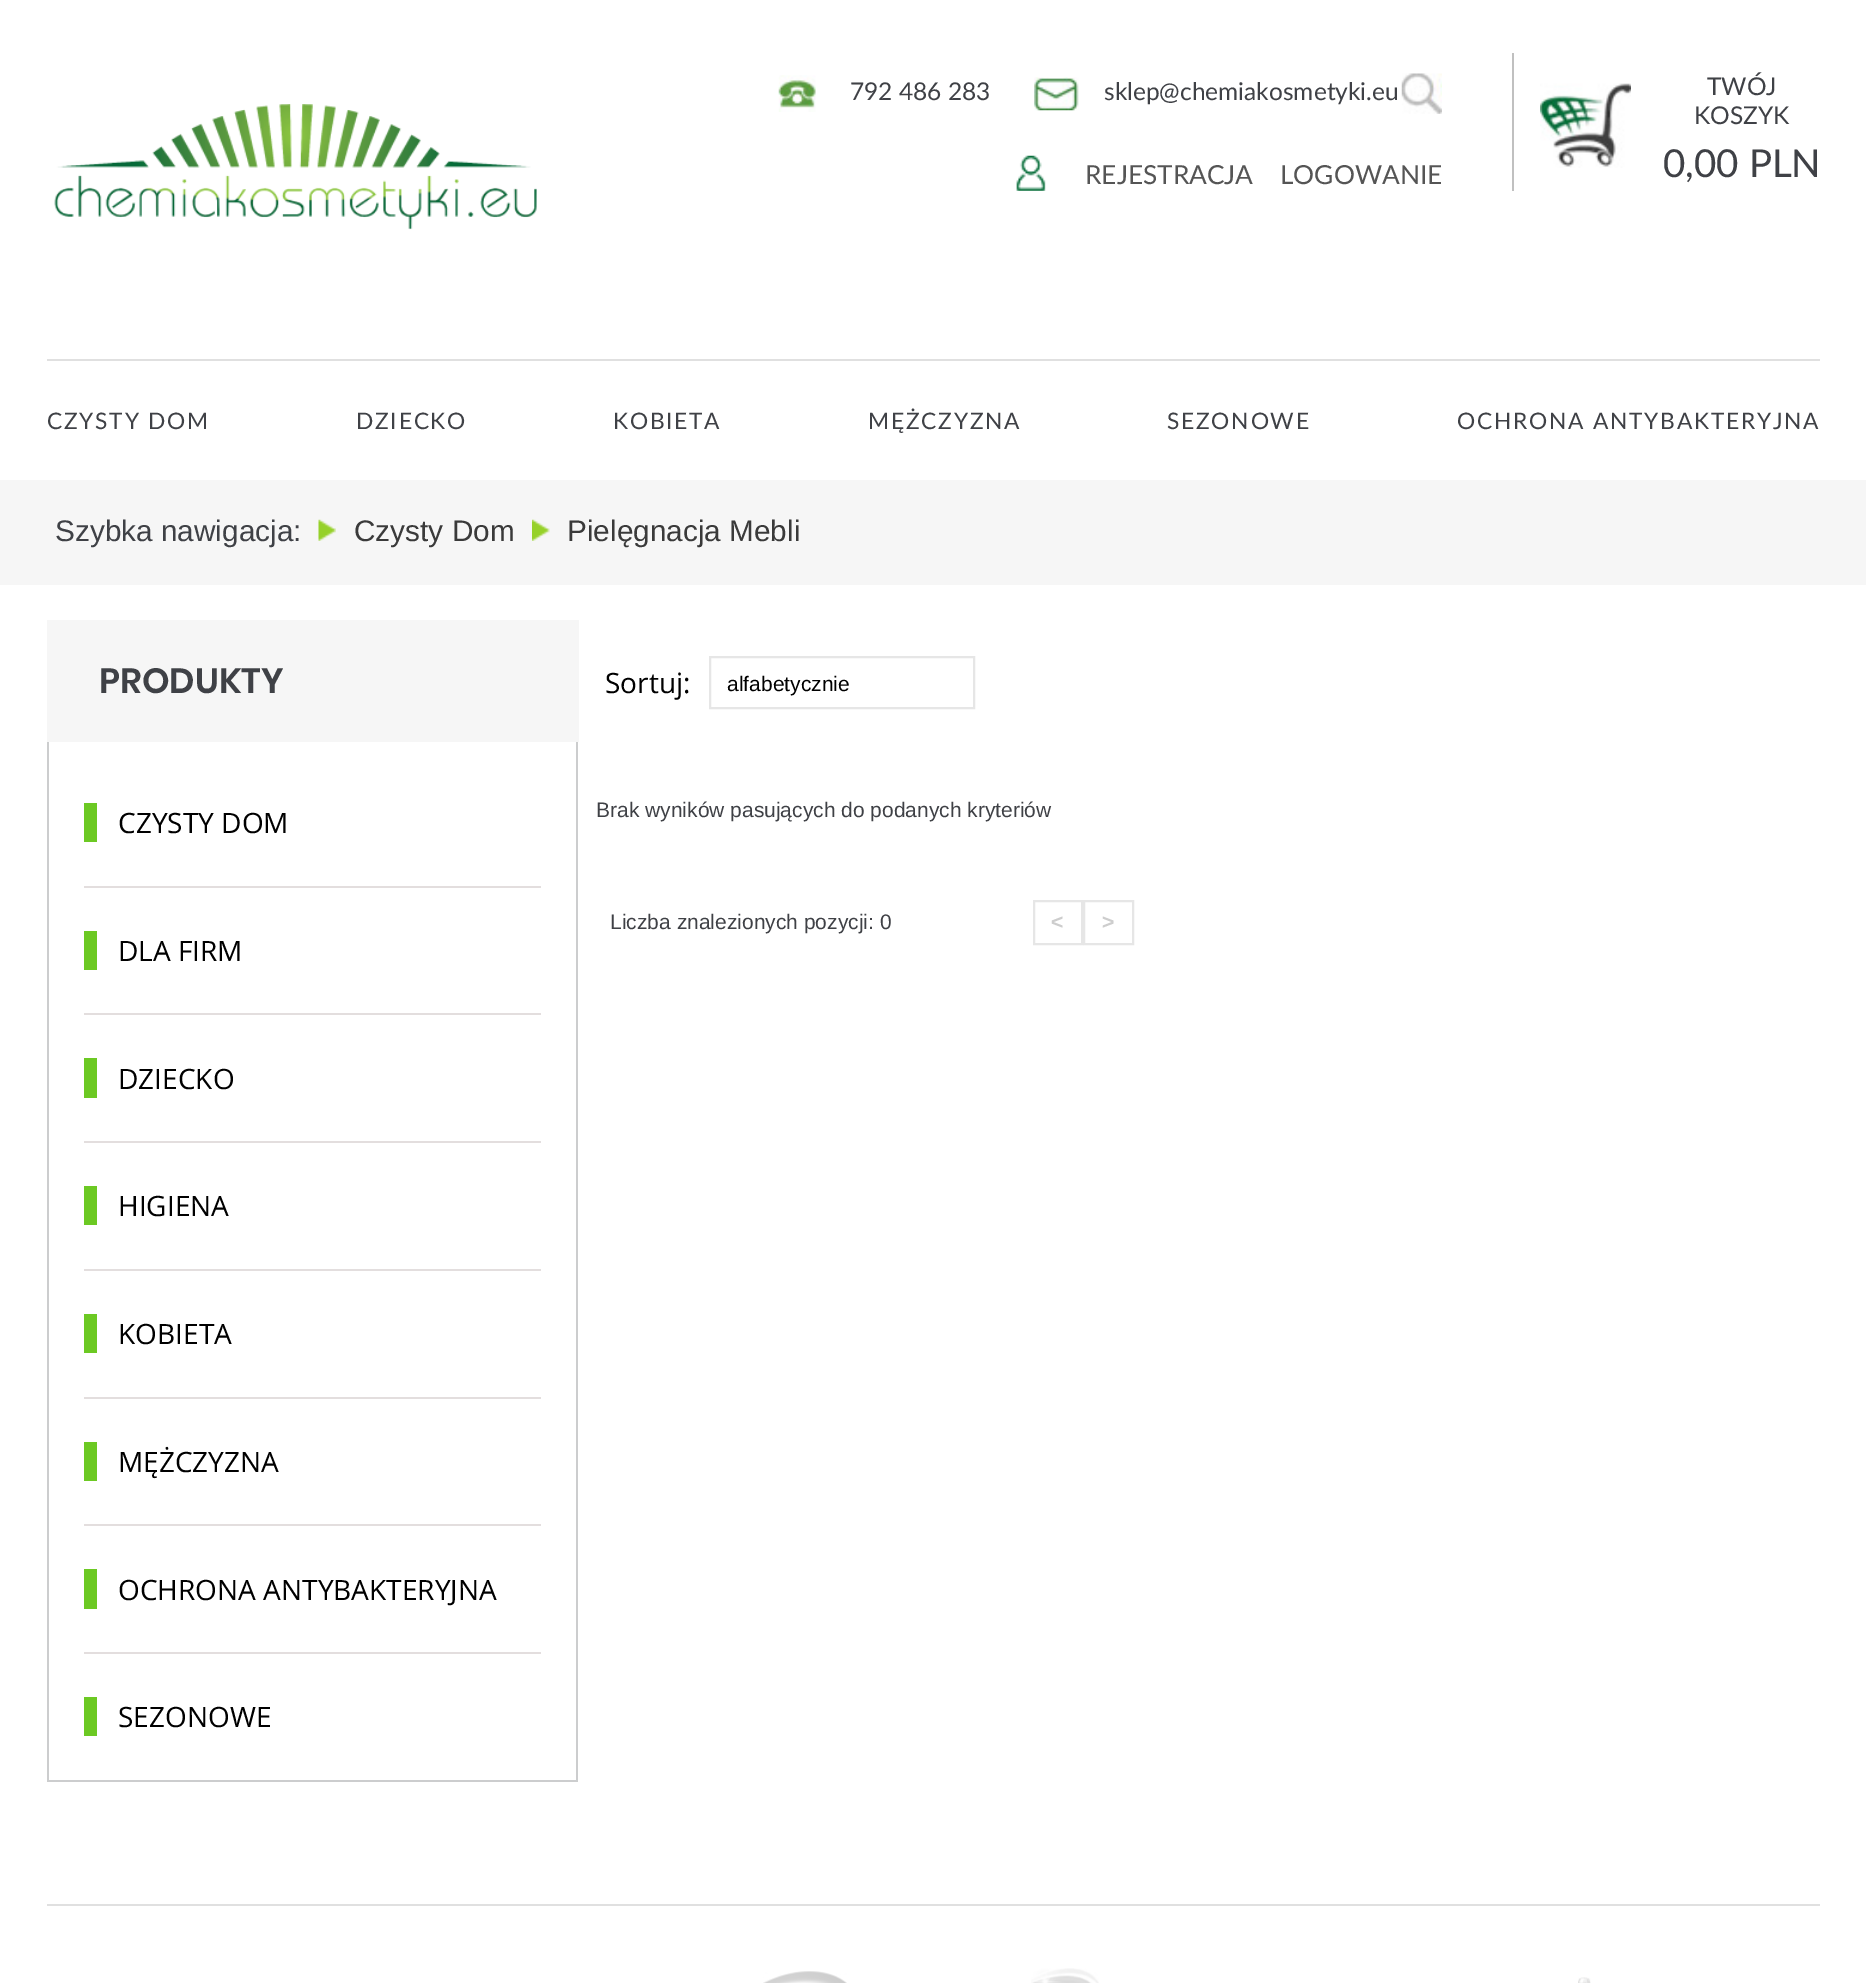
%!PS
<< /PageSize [1866 1983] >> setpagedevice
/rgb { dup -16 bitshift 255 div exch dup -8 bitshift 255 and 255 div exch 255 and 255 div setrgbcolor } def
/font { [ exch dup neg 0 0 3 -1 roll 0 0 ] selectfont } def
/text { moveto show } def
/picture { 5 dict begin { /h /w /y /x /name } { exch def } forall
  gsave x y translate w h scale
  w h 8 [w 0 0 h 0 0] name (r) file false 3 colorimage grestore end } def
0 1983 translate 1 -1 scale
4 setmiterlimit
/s1 { /Lato-Regular 24.5 font 16#3F4146 rgb } def
/s2 { /Lato-Regular 26.25 font 16#555555 rgb } def
/s3 { /Lato-Regular 38.5 font 16#3F4146 rgb } def
/s4 { /LiberationSans-Regular 29.75 font 16#3F4146 rgb } def
/s5 { /LiberationSans-Regular 29.75 font 16#3A3A3A rgb } def
/s6 { /Poppins-SemiBold 35 font 16#3F4146 rgb } def
/s7 { /OpenSans-Regular 28 font 16#000000 rgb } def
/s8 { /LiberationSans-Regular 21 font 16#000000 rgb } def
/s9 { /LiberationSans-Regular 21 font 16#3F4146 rgb } def
/s10 { /LiberationSans-Bold 21 font 16#CDCDCD rgb } def
16#FFFFFF rgb
0 0 1866 1983 rectfill
(pic1.raw) 54 104 483 126 picture
16#C0C0C0 rgb
1512 53 2 138 rectfill
(pic2.raw) 778 75 38 37 picture
s1
(792 486 283) 850 100 text
(pic3.raw) 1034 77 45 34 picture
(sklep@chemiakosmetyki.eu) 1104 100 text
(pic4.raw) 1401 73 41 41 picture
(pic5.raw) 1016 155 30 36 picture
s2
(REJESTRACJA) 1085 184 text
(LOGOWANIE) 1280 184 text
(pic6.raw) 1540 83 91 85 picture
s1
(TWÓJ) 1707 95 text
(KOSZYK) 1694 124 text
s3
(0,00 PLN) 1663 177 text
16#E0E0E0 rgb
47 359 1773 2 rectfill
/Lato-Regular 22.75 font
16#3F4146 rgb
47 429 moveto 1.75 0 (CZYSTY DOM) ashow
356 429 moveto 1.75 0 (DZIECKO) ashow
613 429 moveto 1.75 0 (KOBIETA) ashow
868 429 moveto 1.75 0 (MĘŻCZYZNA) ashow
1167 429 moveto 1.75 0 (SEZONOWE) ashow
1457 429 moveto 1.75 0 (OCHRONA ANTYBAKTERYJNA) ashow
16#F6F6F6 rgb
0 480 1866 105 rectfill
s4
(Szybka nawigacja:) 55 541 text
(pic7.raw) 318 519 18 22 picture
s5
(Czysty Dom) 354 541 text
(pic8.raw) 532 519 18 22 picture
(Pielęgnacja Mebli) 567 541 text
16#F6F6F6 rgb
47 620 532 122 rectfill
s6
(PRODUKTY) 99 693 text
16#CCCDCE rgb
576 742 2 1040 rectfill
47 1780 531 2 rectfill
47 742 2 1040 rectfill
16#6CC923 rgb
84 803 13 39 rectfill
s7
(CZYSTY DOM) 118 833 text
16#6CC923 rgb
84 931 13 39 rectfill
16#E3DEDE rgb
84 886 457 2 rectfill
s7
(DLA FIRM) 118 961 text
16#6CC923 rgb
84 1058 13 40 rectfill
16#E3DEDE rgb
84 1013 457 2 rectfill
s7
(DZIECKO) 118 1089 text
16#6CC923 rgb
84 1186 13 39 rectfill
16#E3DEDE rgb
84 1141 457 2 rectfill
s7
(HIGIENA) 118 1216 text
16#6CC923 rgb
84 1314 13 39 rectfill
16#E3DEDE rgb
84 1269 457 2 rectfill
s7
(KOBIETA) 118 1344 text
16#6CC923 rgb
84 1442 13 39 rectfill
16#E3DEDE rgb
84 1397 457 2 rectfill
s7
(MĘŻCZYZNA) 118 1472 text
16#6CC923 rgb
84 1569 13 40 rectfill
16#E3DEDE rgb
84 1524 457 2 rectfill
s7
(OCHRONA ANTYBAKTERYJNA) 118 1600 text
16#6CC923 rgb
84 1697 13 39 rectfill
16#E3DEDE rgb
84 1652 457 2 rectfill
s7
(SEZONOWE) 118 1727 text
(Sortuj:) 605 693 text
16#E6E6E6 rgb
2 setlinewidth
710 657 264 51 rectstroke
s8
(alfabetycznie) 727 691 text
s9
(Brak wyników pasujących do podanych kryteriów) 596 817 text
(Liczba znalezionych pozycji: 0) 610 929 text
16#E6E6E6 rgb
1034 901 48 43 rectstroke
s10
(<) 1051 929 text
16#E6E6E6 rgb
1084 901 49 43 rectstroke
s10
(>) 1102 929 text
16#E0E0E0 rgb
47 1904 1773 2 rectfill
(pic9.raw) 763 1971 84 12 picture
(pic10.raw) 1031 1968 68 15 picture
(pic11.raw) 1578 1977 13 6 picture
showpage
